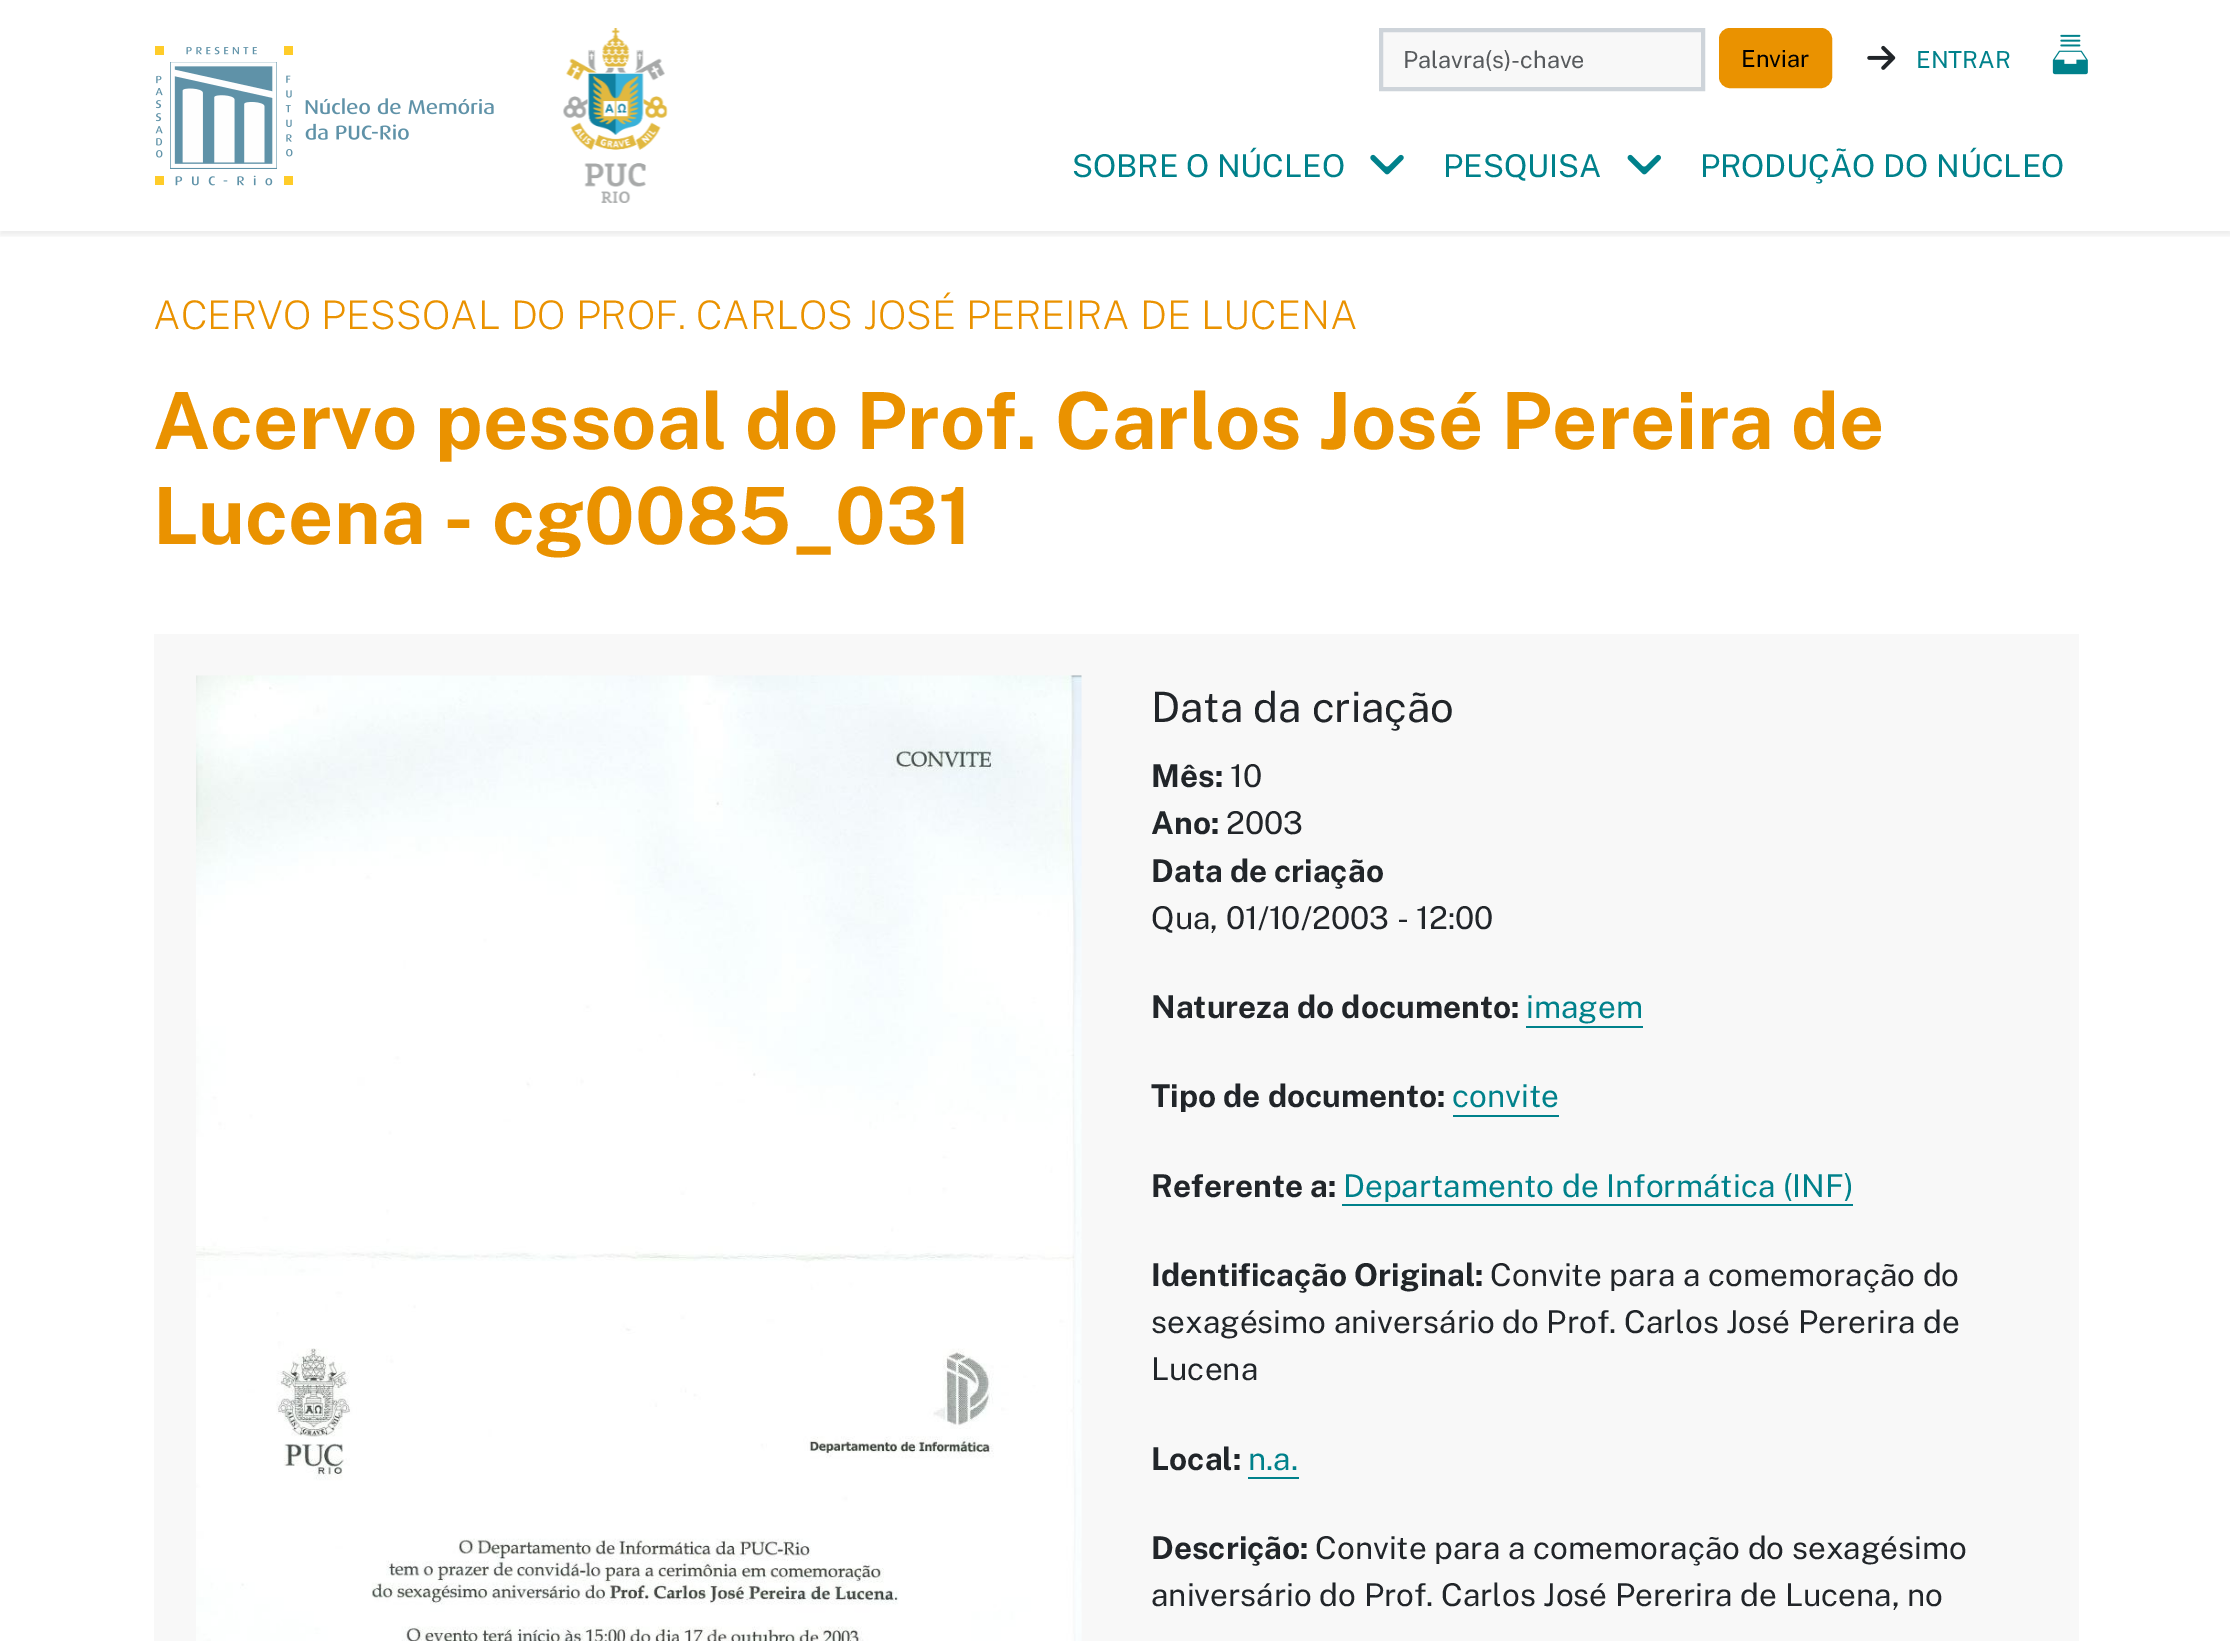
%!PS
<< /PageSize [2230 1641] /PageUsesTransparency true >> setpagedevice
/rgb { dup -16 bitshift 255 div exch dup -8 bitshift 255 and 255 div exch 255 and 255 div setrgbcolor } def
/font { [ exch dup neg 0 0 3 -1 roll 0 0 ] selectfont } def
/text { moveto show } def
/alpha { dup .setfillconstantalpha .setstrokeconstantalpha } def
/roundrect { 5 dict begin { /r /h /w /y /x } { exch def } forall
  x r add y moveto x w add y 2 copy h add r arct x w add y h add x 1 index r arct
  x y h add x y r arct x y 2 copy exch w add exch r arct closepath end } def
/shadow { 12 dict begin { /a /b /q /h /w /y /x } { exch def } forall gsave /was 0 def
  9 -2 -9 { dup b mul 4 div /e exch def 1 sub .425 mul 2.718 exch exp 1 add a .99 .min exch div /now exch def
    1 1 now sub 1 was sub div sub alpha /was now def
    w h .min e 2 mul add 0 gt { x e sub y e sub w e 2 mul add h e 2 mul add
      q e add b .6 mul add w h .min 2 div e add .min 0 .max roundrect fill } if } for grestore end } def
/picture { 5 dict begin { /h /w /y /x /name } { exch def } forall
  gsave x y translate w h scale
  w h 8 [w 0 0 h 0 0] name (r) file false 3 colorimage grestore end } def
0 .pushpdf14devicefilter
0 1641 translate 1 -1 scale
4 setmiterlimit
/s1 { /PublicSans-Regular 23.5 font 16#575A5D rgb } def
/s2 { /PublicSans-Regular 23.5 font 16#000000 rgb } def
/s3 { /PublicSans-Regular 23.5 font 16#00818B rgb } def
/s4 { /PublicSans-Regular 31.5 font 16#00818B rgb } def
/s5 { /PublicSans-ExtraLight 39.4 font 16#EA9200 rgb } def
/s6 { /PublicSans-Bold 78.75 font 16#EA9200 rgb } def
/s7 { /PublicSans-Regular 42 font 16#212529 rgb } def
/s8 { /PublicSans-Bold 31.5 font 16#212529 rgb } def
/s9 { /PublicSans-Regular 31.5 font 16#212529 rgb } def
16#FFFFFF rgb
0 0 2230 1641 rectfill
gsave
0 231 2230 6 rectclip
16#000000 rgb
0 4 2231 231 0 3.5 0.07 shadow
grestore
(pic1.raw) 155 46 339 140 picture
(pic2.raw) 563 28 105 175 picture
16#F8F8F8 rgb
1381 30 moveto 1703 30 lineto 1703 89 lineto 1381 89 lineto closepath gsave fill grestore
16#CED4DA rgb
4 setlinewidth
stroke
s1
(Palavra\(s\)-chave) 1403 68 text
16#EA9200 rgb
1720 29 111 58 10 roundrect gsave fill grestore
2 setlinewidth
stroke
s2
(Enviar) 1741 67 text
(pic3.raw) 1867 45 29 25 picture
s3
(ENTRAR) 1916 68 text
(pic4.raw) 2052 34 36 41 picture
s4
(SOBRE O NÚCLEO) 1072 177 text
(pic5.raw) 1370 154 34 21 picture
(PESQUISA) 1443 177 text
(pic6.raw) 1627 154 34 21 picture
(PRODUÇÃO DO NÚCLEO) 1700 177 text
s5
(ACERVO PESSOAL DO PROF. CARLOS JOSÉ PEREIRA DE LUCENA) 153 329 text
s6
(Acervo pessoal do Prof. Carlos José Pereira de) 153 449 text
(Lucena - cg0085_031) 153 544 text
16#F8F8F8 rgb
154 634 1925 1007 rectfill
(pic7.raw) 196 675 886 966 picture
s7
(Data da criação) 1151 722 text
s8
(Mês:) 1151 787 text
s9
(10) 1230 787 text
s8
(Ano:) 1151 834 text
s9
(2003) 1226 834 text
s8
(Data de criação) 1151 882 text
s9
(Qua, 01/10/2003 - 12:00) 1151 929 text
s8
(Natureza do documento:) 1151 1018 text
s4
(imagem) 1526 1018 text
1526 1026 117 2 rectfill
s8
(Tipo de documento:) 1151 1107 text
s4
(convite) 1452 1107 text
1453 1115 106 2 rectfill
s8
(Referente a:) 1151 1197 text
s4
(Departamento de Informática \(INF\)) 1343 1197 text
1342 1204 511 2 rectfill
s9
(Convite para a comemoração do) 1490 1286 text
(sexagésimo aniversário do Prof. Carlos José Pererira de) 1151 1333 text
(Lucena) 1151 1380 text
s8
(Identificação Original:) 1151 1286 text
(Local:) 1151 1470 text
s4
(n.a.) 1248 1470 text
1248 1477 51 2 rectfill
s9
(Convite para a comemoração do sexagésimo) 1315 1559 text
(aniversário do Prof. Carlos José Pererira de Lucena, no) 1151 1606 text
s8
(Descrição:) 1151 1559 text
.poppdf14devicefilter showpage
